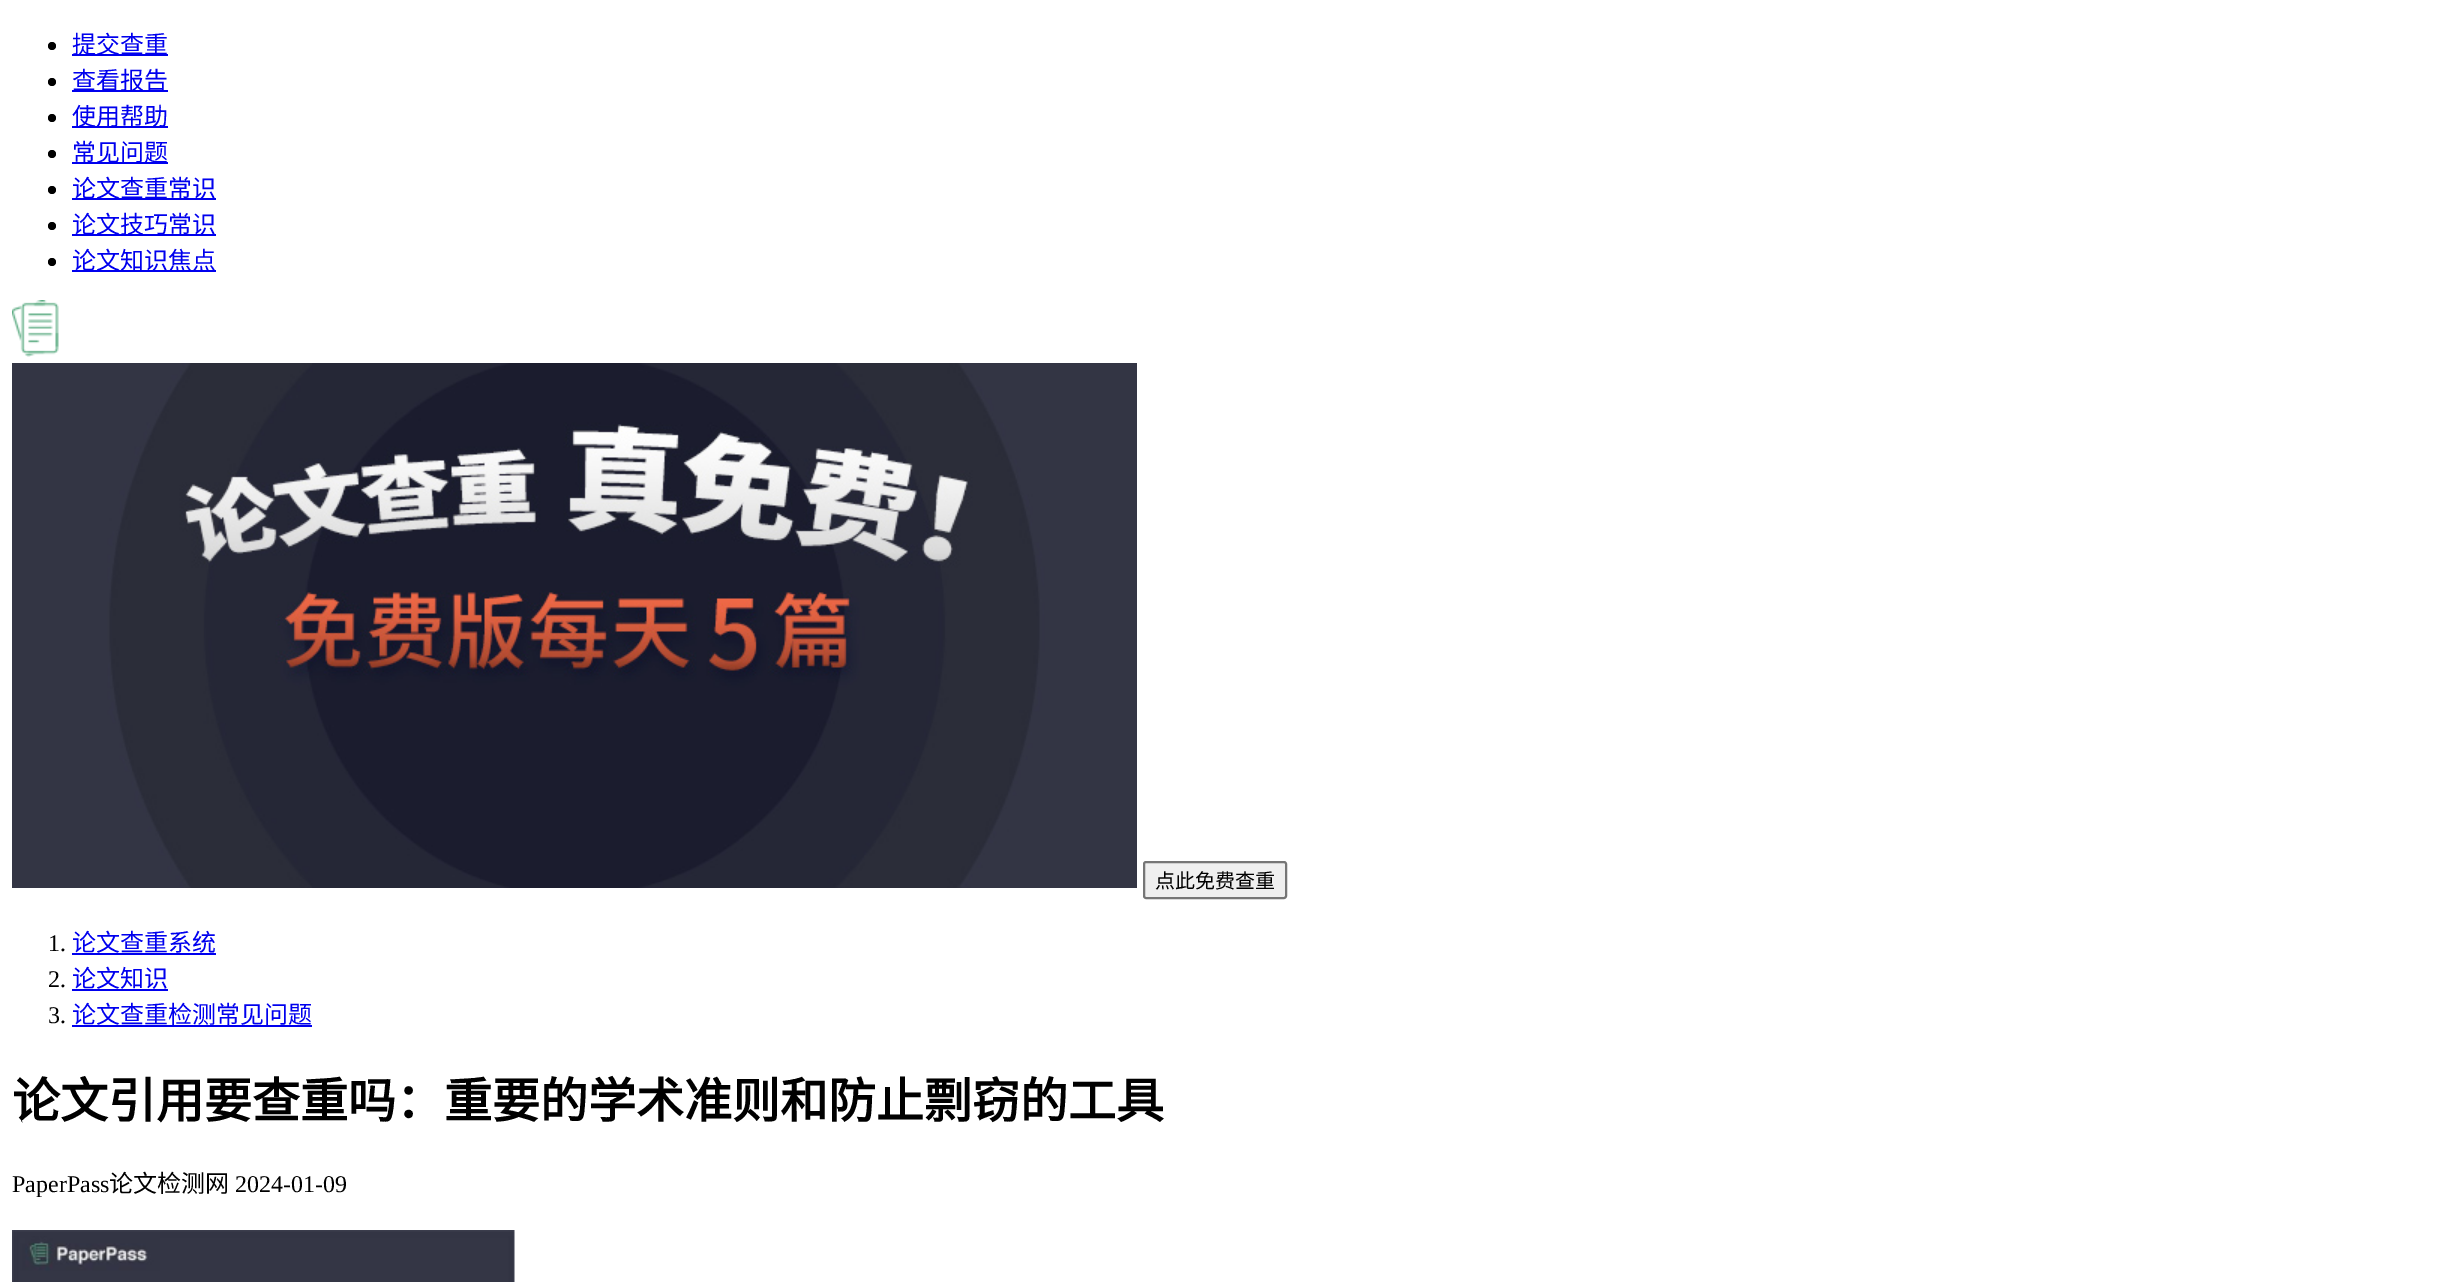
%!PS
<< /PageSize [2453 1282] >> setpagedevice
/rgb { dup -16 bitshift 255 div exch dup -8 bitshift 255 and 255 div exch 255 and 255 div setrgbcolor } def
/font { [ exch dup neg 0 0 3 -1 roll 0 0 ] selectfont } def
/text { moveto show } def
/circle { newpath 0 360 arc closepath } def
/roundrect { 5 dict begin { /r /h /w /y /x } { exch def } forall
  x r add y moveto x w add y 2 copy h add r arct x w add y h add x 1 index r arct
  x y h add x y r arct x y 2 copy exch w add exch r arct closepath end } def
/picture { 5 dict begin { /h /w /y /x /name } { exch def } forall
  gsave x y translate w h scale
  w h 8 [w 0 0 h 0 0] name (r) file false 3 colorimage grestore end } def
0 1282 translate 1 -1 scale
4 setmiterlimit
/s1 { /NotoSansCJKSC-Regular 24 font 16#0000EE rgb } def
/s2 { /NotoSansCJKSC-Regular 20 font 16#000000 rgb } def
/s3 { /LiberationSerif-Regular 24 font 16#000000 rgb } def
/s4 { /NotoSansCJKSC-Bold 48 font 16#000000 rgb } def
/s5 { /NotoSansCJKSC-Regular 24 font 16#000000 rgb } def
16#FFFFFF rgb
0 0 2453 1282 rectfill
16#000000 rgb
52 46 4 circle fill
16#0000EE rgb
72 54 96 2 rectfill
s1
(提交查重) 72 53 text
16#000000 rgb
52 82 4 circle fill
16#0000EE rgb
72 90 96 2 rectfill
(查看报告) 72 89 text
16#000000 rgb
52 118 4 circle fill
16#0000EE rgb
72 126 96 2 rectfill
(使用帮助) 72 125 text
16#000000 rgb
52 154 4 circle fill
16#0000EE rgb
72 162 96 2 rectfill
(常见问题) 72 161 text
16#000000 rgb
52 190 4 circle fill
16#0000EE rgb
72 198 144 2 rectfill
(论文查重常识) 72 197 text
16#000000 rgb
52 226 4 circle fill
16#0000EE rgb
72 234 144 2 rectfill
(论文技巧常识) 72 233 text
16#000000 rgb
52 262 4 circle fill
16#0000EE rgb
72 270 144 2 rectfill
(论文知识焦点) 72 269 text
(pic1.raw) 12 300 47 57 picture
(pic2.raw) 12 363 1125 525 picture
16#EFEFEF rgb
1144 862 142 36 2 roundrect gsave fill grestore
16#767676 rgb
2 setlinewidth
stroke
s2
(点此免费查重) 1155 888 text
s3
(1.) 48 951 text
s1
(论文查重系统) 72 951 text
72 953 144 2 rectfill
s3
(2.) 48 987 text
s1
(论文知识) 72 987 text
72 989 96 2 rectfill
s3
(3.) 48 1023 text
s1
(论文查重检测常见问题) 72 1023 text
72 1025 240 2 rectfill
s4
(论文引用要查重吗：重要的学术准则和防止剽窃的工具) 12 1118 text
s3
(PaperPass) 12 1192 text
s5
(论文检测网) 109 1192 text
s3
(2024-01-09) 235 1192 text
(pic3.raw) 12 1230 503 52 picture
showpage
